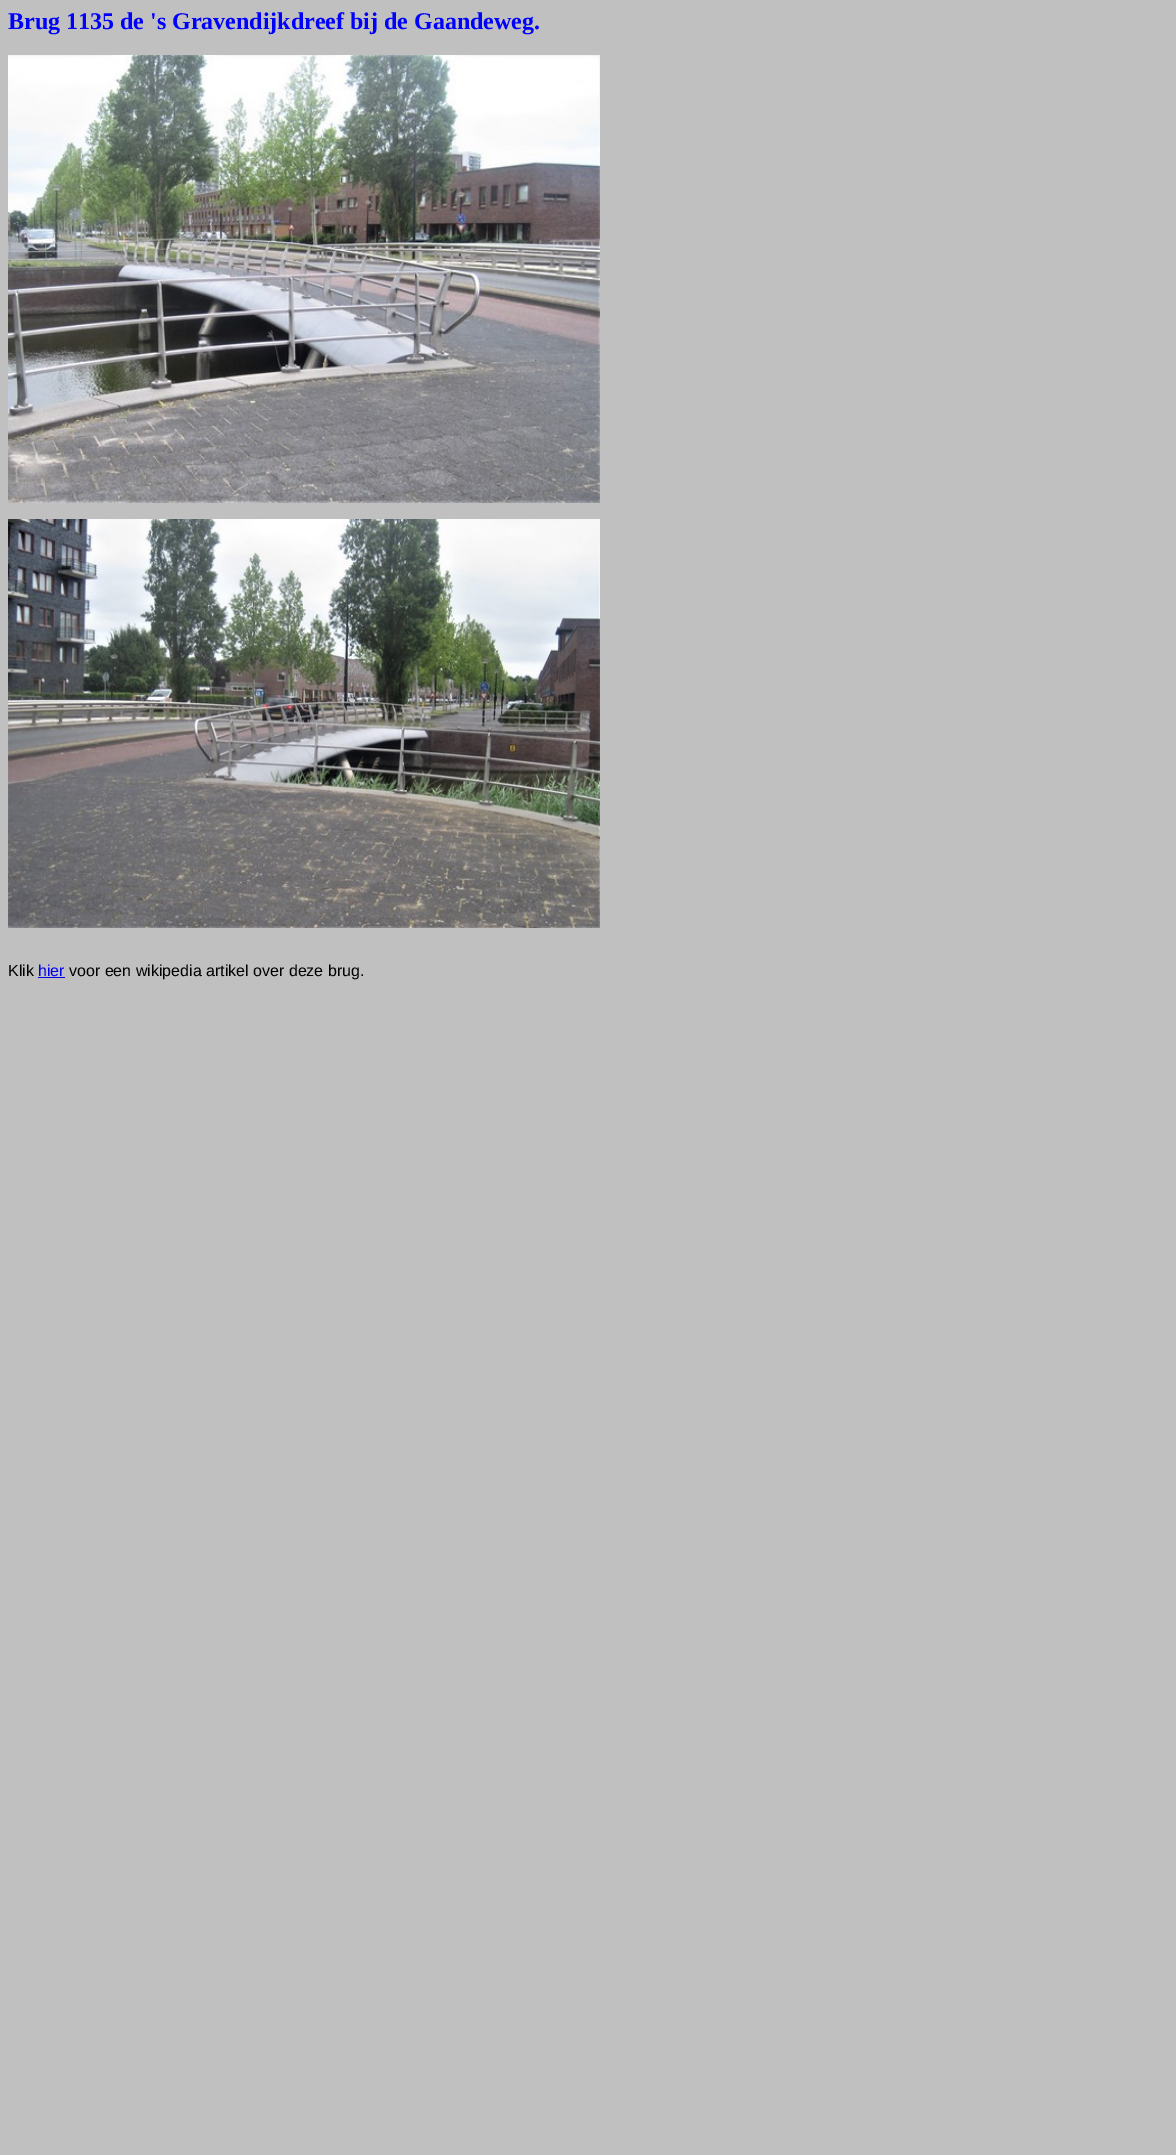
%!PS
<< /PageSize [1176 2155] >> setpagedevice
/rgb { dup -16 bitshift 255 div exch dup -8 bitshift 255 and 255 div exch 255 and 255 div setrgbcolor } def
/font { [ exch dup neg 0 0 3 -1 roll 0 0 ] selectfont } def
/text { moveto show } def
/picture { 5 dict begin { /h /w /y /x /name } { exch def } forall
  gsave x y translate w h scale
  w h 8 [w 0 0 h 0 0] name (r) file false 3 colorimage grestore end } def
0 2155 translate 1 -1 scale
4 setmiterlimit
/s1 { /LiberationSerif-Bold 24 font 16#0000FF rgb } def
/s2 { /LiberationSans-Regular 16 font 16#000000 rgb } def
/s3 { /LiberationSans-Regular 16 font 16#0000EE rgb } def
16#C0C0C0 rgb
0 0 1176 2155 rectfill
s1
(Brug 1135 de 's Gravendijkdreef bij de Gaandeweg.) 8 29 text
(pic1.raw) 8 55 592 448 picture
(pic2.raw) 8 519 592 409 picture
s2
(Klik) 8 976 text
s3
(hier) 38 976 text
38 977 27 1 rectfill
s2
(voor een wikipedia artikel over deze brug.) 69 976 text
showpage
